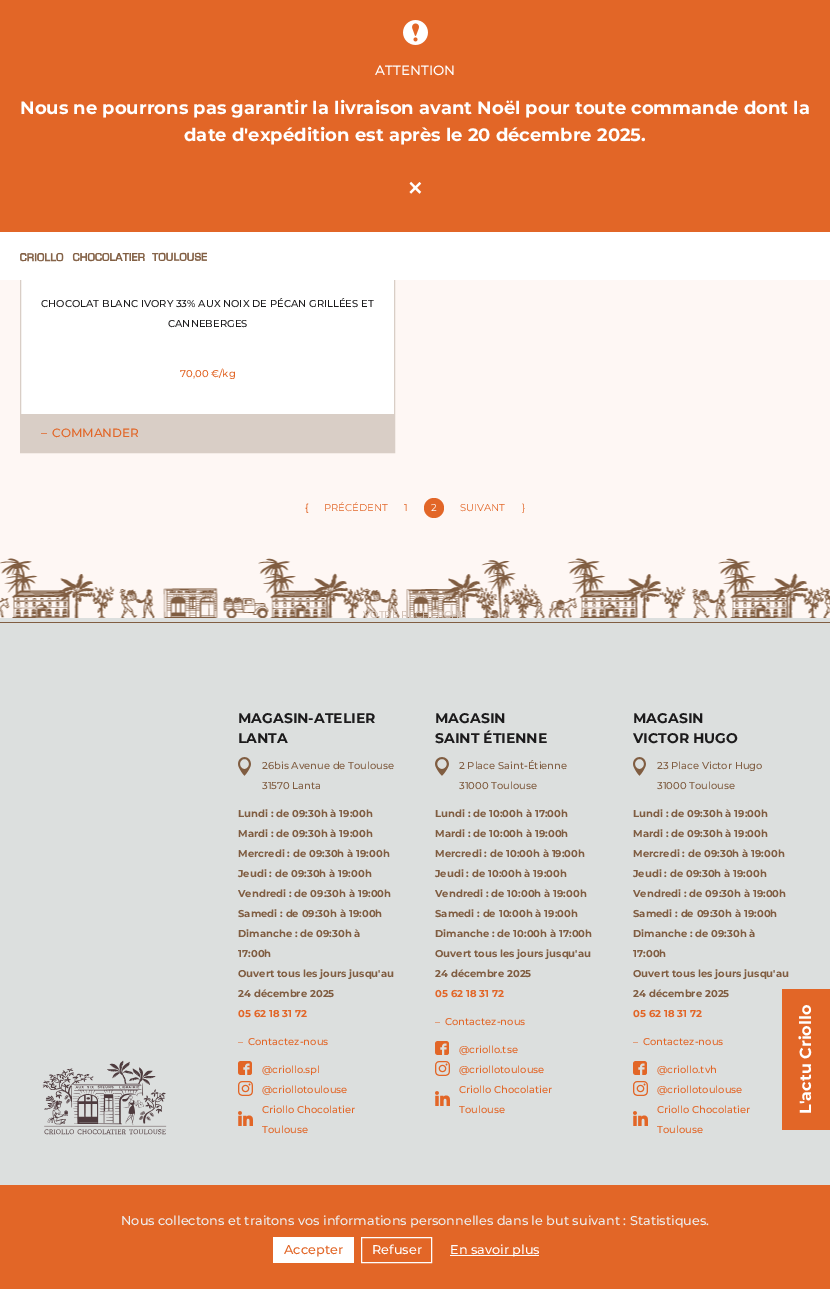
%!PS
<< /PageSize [830 1289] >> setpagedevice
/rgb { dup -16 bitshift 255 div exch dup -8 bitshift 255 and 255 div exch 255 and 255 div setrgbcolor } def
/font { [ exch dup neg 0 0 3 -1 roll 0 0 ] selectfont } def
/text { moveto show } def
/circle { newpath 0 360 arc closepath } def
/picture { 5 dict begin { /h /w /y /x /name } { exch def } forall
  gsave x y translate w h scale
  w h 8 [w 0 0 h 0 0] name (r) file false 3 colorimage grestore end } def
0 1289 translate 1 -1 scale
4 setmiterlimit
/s1 { /Montserrat-Medium 13.5 font 16#FFFFFF rgb } def
/s2 { /Montserrat-Bold 18 font 16#FFFFFF rgb } def
/s3 { /Montserrat-Medium 32 font 16#FFFFFF rgb } def
/s4 { /Montserrat-Medium 10 font 16#1C1B1C rgb } def
/s5 { /Montserrat-Medium 10 font 16#E26627 rgb } def
/s6 { /Montserrat-Medium 12 font 16#E26627 rgb } def
/s7 { /Montserrat-Regular 10 font 16#E26627 rgb } def
/s8 { /Montserrat-Regular 10 font 16#FFFFFF rgb } def
/s9 { /Montserrat-Medium 10 font 16#D3C2B7 rgb } def
/s10 { /Montserrat-Bold 14 font 16#1C1B1C rgb } def
/s11 { /Montserrat-Medium 10 font 16#805D41 rgb } def
/s12 { /Montserrat-Bold 10 font 16#805D41 rgb } def
/s13 { /Montserrat-Bold 10 font 16#E26627 rgb } def
/s14 { /Montserrat-Medium 12.8 font 16#EEEEEE rgb } def
/s15 { /Montserrat-Medium 12.8 font 16#E26627 rgb } def
/s16 { /Montserrat-Medium 12.8 font 16#FFFFFF rgb } def
16#FEF7F4 rgb
0 0 830 1289 rectfill
16#FFFFFF rgb
21 280 373 134 rectfill
16#D9CEC6 rgb
20.5 85.5 374 367 rectstroke
16#E26627 rgb
0 0 830 232 rectfill
(pic1.raw) 403 20 25 25 picture
s1
(ATTENTION) 375 75 text
s2
(Nous ne pourrons pas garantir la livraison avant Noël pour toute commande dont la) 20 114 text
(date d'expédition est après le 20 décembre 2025.) 184 141 text
s3
(×) 406 199 text
0 232 830 48 rectfill
(pic2.raw) 20 252 187 10 picture
s4
(CHOCOLAT BLANC IVORY 33% AUX NOIX DE PÉCAN GRILLÉES ET) 41 307 text
(CANNEBERGES) 168 327 text
s5
(70,00 €/kg) 180 377 text
16#D9CEC6 rgb
21 414 373 38 rectfill
s6
(–) 41 437 text
(COMMANDER) 52 437 text
s5
({) 305 511 text
s7
(PRÉCÉDENT) 324 511 text
(1) 404 511 text
434 508 10 circle fill
s8
(2) 431 511 text
s7
(SUIVANT) 460 511 text
(}) 522 511 text
16#DCDFDE rgb
0 618 830 567 rectfill
16#E26627 rgb
782 989 48 141 rectfill
/Montserrat-Bold 16 font
16#FFFFFF rgb
gsave 811 1114 translate -90 rotate 0 0 moveto (L'actu Criollo) show grestore
(pic3.raw) 0 558 830 60 picture
s9
(VOTRE RECHERCHE) 363 618 text
16#805D41 rgb
0 622 830 1 rectfill
(pic4.raw) 42 1060 125 75 picture
s10
(MAGASIN-ATELIER) 238 723 text
(LANTA) 238 743 text
(pic5.raw) 238 757 13 19 picture
s11
(26bis Avenue de Toulouse) 262 769 text
(31570 Lanta) 262 789 text
s12
(Lundi : de 09:30h à 19:00h) 238 817 text
(Mardi : de 09:30h à 19:00h) 238 837 text
(Mercredi : de 09:30h à 19:00h) 238 857 text
(Jeudi : de 09:30h à 19:00h) 238 877 text
(Vendredi : de 09:30h à 19:00h) 238 897 text
(Samedi : de 09:30h à 19:00h) 238 917 text
(Dimanche : de 09:30h à) 238 937 text
(17:00h) 238 957 text
(Ouvert tous les jours jusqu'au) 238 977 text
(24 décembre 2025) 238 997 text
s13
(05 62 18 31 72) 238 1017 text
s5
(–) 238 1045 text
(Contactez-nous) 248 1045 text
(pic6.raw) 238 1061 14 14 picture
(@criollo.spl) 262 1073 text
(pic7.raw) 238 1081 15 15 picture
(@criollotoulouse) 262 1093 text
(Criollo Chocolatier) 262 1113 text
(pic8.raw) 238 1111 15 15 picture
(Toulouse) 262 1133 text
s10
(MAGASIN) 435 723 text
(SAINT ÉTIENNE) 435 743 text
(pic9.raw) 435 757 14 19 picture
s11
(2 Place Saint-Étienne) 459 769 text
(31000 Toulouse) 459 789 text
s12
(Lundi : de 10:00h à 17:00h) 435 817 text
(Mardi : de 10:00h à 19:00h) 435 837 text
(Mercredi : de 10:00h à 19:00h) 435 857 text
(Jeudi : de 10:00h à 19:00h) 435 877 text
(Vendredi : de 10:00h à 19:00h) 435 897 text
(Samedi : de 10:00h à 19:00h) 435 917 text
(Dimanche : de 10:00h à 17:00h) 435 937 text
(Ouvert tous les jours jusqu'au) 435 957 text
(24 décembre 2025) 435 977 text
s13
(05 62 18 31 72) 435 997 text
s5
(–) 435 1025 text
(Contactez-nous) 445 1025 text
(pic6.raw) 435 1041 14 14 picture
(@criollo.tse) 459 1053 text
(pic7.raw) 435 1061 15 15 picture
(@criollotoulouse) 459 1073 text
(Criollo Chocolatier) 459 1093 text
(pic8.raw) 435 1091 15 15 picture
(Toulouse) 459 1113 text
s10
(MAGASIN) 633 723 text
(VICTOR HUGO) 633 743 text
(pic5.raw) 633 757 13 19 picture
s11
(23 Place Victor Hugo) 657 769 text
(31000 Toulouse) 657 789 text
s12
(Lundi : de 09:30h à 19:00h) 633 817 text
(Mardi : de 09:30h à 19:00h) 633 837 text
(Mercredi : de 09:30h à 19:00h) 633 857 text
(Jeudi : de 09:30h à 19:00h) 633 877 text
(Vendredi : de 09:30h à 19:00h) 633 897 text
(Samedi : de 09:30h à 19:00h) 633 917 text
(Dimanche : de 09:30h à) 633 937 text
(17:00h) 633 957 text
(Ouvert tous les jours jusqu'au) 633 977 text
(24 décembre 2025) 633 997 text
s13
(05 62 18 31 72) 633 1017 text
s5
(–) 633 1045 text
(Contactez-nous) 643 1045 text
(pic6.raw) 633 1061 14 14 picture
(@criollo.tvh) 657 1073 text
(pic7.raw) 633 1081 15 15 picture
(@criollotoulouse) 657 1093 text
(Criollo Chocolatier) 657 1113 text
(pic8.raw) 633 1111 15 15 picture
(Toulouse) 657 1133 text
0 1185 830 104 rectfill
s14
(Nous collectons et traitons vos informations personnelles dans le but suivant : Statistiques.) 121 1225 text
16#FFFFFF rgb
273 1237 81 26 rectfill
s15
(Accepter) 284 1254 text
16#FEFEFE rgb
361.5 1237.5 70 25 rectstroke
s16
(Refuser) 372 1254 text
16#FEFEFE rgb
450 1255 89 1 rectfill
s16
(En savoir plus) 450 1254 text
showpage
